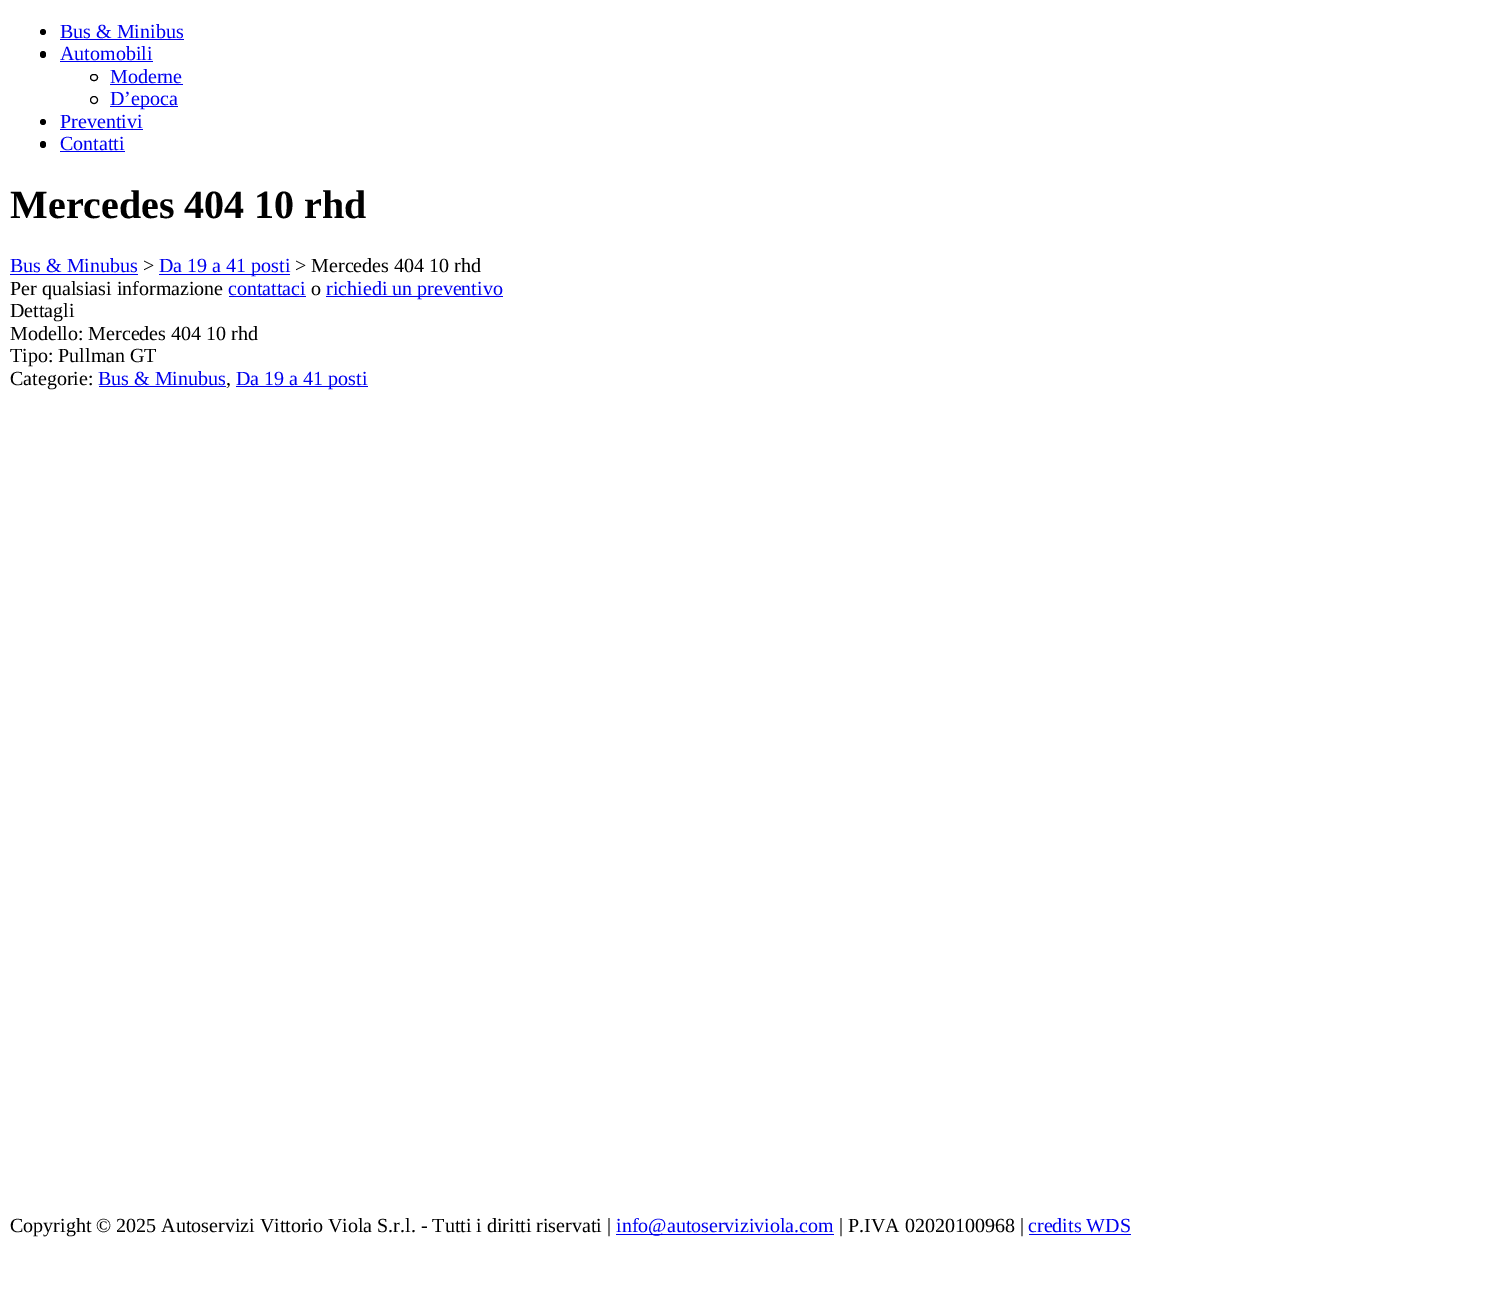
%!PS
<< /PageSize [1509 1309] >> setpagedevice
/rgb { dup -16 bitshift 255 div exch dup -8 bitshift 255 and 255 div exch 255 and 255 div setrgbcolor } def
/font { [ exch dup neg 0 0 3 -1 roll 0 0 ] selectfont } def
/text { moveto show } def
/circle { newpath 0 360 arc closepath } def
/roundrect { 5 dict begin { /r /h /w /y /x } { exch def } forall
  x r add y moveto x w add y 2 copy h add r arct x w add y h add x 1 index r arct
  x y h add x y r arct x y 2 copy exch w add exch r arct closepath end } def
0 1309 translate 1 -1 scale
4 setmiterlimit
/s1 { /LiberationSerif-Regular 20 font 16#0000EE rgb } def
/s2 { /LiberationSerif-Bold 40 font 16#000000 rgb } def
/s3 { /LiberationSerif-Regular 20 font 16#000000 rgb } def
16#FFFFFF rgb
0 0 1509 1309 rectfill
16#000000 rgb
43 32 3 circle fill
s1
(Bus & Minibus) 60 38 text
60 39 124 1 rectfill
16#000000 rgb
40 51 6 7 3 roundrect fill
s1
(Automobili) 60 60 text
60 61 93 1 rectfill
16#000000 rgb
90.5 74.5 7 6 3 roundrect stroke
s1
(Moderne) 110 83 text
110 84 73 1 rectfill
16#000000 rgb
94 100 3.5 circle stroke
16#0000EE rgb
110 106 68 1 rectfill
(D’epoca) 110 105 text
16#000000 rgb
43 122 3 circle fill
s1
(Preventivi) 60 128 text
60 129 83 1 rectfill
16#000000 rgb
40 141 6 7 3 roundrect fill
s1
(Contatti) 60 150 text
60 151 65 1 rectfill
s2
(Mercedes 404 10 rhd) 10 218 text
s1
(Bus & Minubus) 10 272 text
10 274 128 1 rectfill
s3
(>) 143 272 text
16#0000EE rgb
159 274 131 1 rectfill
(Da 19 a 41 posti) 159 272 text
s3
(> Mercedes 404 10 rhd) 295 272 text
(Per qualsiasi informazione) 10 295 text
s1
(contattaci) 228 295 text
229 296 77 1 rectfill
s3
(o) 311 295 text
16#0000EE rgb
326 296 177 1 rectfill
(richiedi un preventivo) 326 295 text
s3
(Dettagli) 10 317 text
(Modello: Mercedes 404 10 rhd) 10 340 text
(Tipo: Pullman GT) 10 362 text
(Categorie:) 10 385 text
s1
(Bus & Minubus) 98 385 text
99 386 127 1 rectfill
s3
(,) 226 385 text
16#0000EE rgb
236 386 132 1 rectfill
(Da 19 a 41 posti) 236 385 text
s3
(Copyright © 2025 Autoservizi Vittorio Viola S.r.l. - Tutti i diritti riservati |) 10 1232 text
16#0000EE rgb
616 1234 218 1 rectfill
(info@autoserviziviola.com) 616 1232 text
s3
(| P.IVA 02020100968 |) 839 1232 text
s1
(credits WDS) 1028 1232 text
1029 1234 102 1 rectfill
showpage
